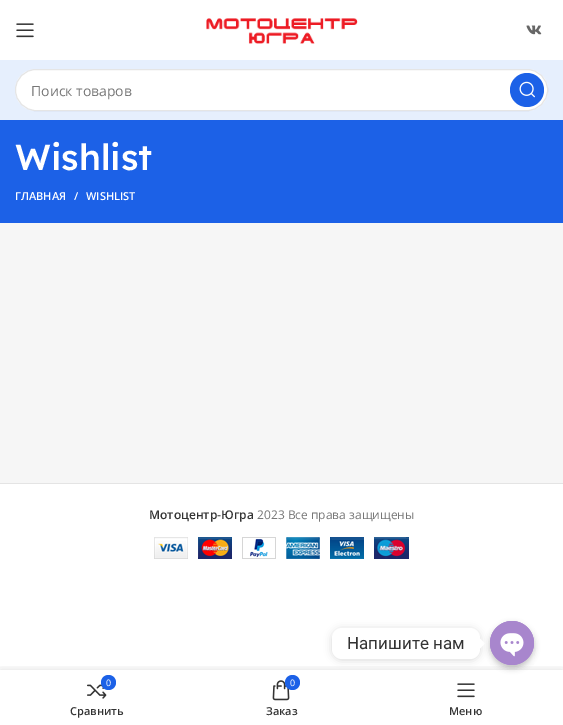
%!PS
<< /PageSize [563 725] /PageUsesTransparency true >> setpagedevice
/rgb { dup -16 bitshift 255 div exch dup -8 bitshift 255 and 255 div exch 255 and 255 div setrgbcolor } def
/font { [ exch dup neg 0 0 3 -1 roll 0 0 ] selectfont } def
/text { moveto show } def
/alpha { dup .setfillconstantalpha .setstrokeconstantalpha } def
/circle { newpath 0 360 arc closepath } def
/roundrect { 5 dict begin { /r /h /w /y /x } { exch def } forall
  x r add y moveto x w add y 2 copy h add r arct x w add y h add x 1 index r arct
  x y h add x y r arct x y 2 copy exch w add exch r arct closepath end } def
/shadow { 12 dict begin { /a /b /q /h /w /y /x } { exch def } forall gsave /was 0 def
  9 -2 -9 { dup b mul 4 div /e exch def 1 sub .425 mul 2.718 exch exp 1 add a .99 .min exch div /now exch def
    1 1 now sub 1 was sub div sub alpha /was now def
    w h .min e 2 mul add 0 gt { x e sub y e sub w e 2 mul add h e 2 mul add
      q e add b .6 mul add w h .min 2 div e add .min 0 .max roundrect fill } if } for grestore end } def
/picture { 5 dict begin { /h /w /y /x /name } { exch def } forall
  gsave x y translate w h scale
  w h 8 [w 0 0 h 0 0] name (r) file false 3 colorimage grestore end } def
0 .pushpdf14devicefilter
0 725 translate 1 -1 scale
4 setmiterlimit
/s1 { /OpenSans-Regular 14 font 16#777777 rgb } def
/s2 { /LexendDeca-Medium 36 font 16#FFFFFF rgb } def
/s3 { /OpenSans-SemiBold 11 font 16#FFFFFF rgb } def
/s4 { /OpenSans-SemiBold 12 font 16#333333 rgb } def
/s5 { /OpenSans-Regular 12 font 16#777777 rgb } def
/s6 { /Roboto-Regular 17 font 16#333333 rgb } def
/s7 { /OpenSans-Regular 9 font 16#FFFFFF rgb } def
/s8 { /OpenSans-SemiBold 11 font 16#333333 rgb } def
16#FFFFFF rgb
0 0 563 725 rectfill
(pic1.raw) 16 23 18 15 picture
(pic2.raw) 206 18 152 26 picture
(pic3.raw) 526 25 16 10 picture
16#E6EFFD rgb
0 60 563 60 rectfill
16#FFFFFF rgb
15 69 533 42 21 roundrect fill
0.1 alpha
16#000000 rgb
15.5 69.5 532 41 20.5 roundrect stroke
1 alpha
s1
(Поиск товаров) 31 96 text
16#1C61E7 rgb
527 90 17 circle fill
(pic4.raw) 519 81 16 17 picture
16#F6F6F6 rgb
0 223 563 260 rectfill
16#1C61E7 rgb
0 120 563 103 rectfill
s2
(Wishlist) 15 170 text
s3
(ГЛАВНАЯ) 15 200 text
(/) 74 200 text
(WISHLIST) 86 200 text
16#E4E4E4 rgb
0 483 563 1 rectfill
s4
(Мотоцентр-Югра) 149 519 text
s5
(2023 Все права защищены) 257 519 text
(pic5.raw) 154 537 255 22 picture
16#000000 rgb
332 629 148 31 10 4 0.15 shadow
gsave
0 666 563 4 rectclip
0 670 563 55 0 4.5 0.12 shadow
grestore
16#FFFFFF rgb
332 628 148 31 10 roundrect fill
s6
(Напишите нам) 347 649 text
16#FFFFFF rgb
480 648.5 moveto 480 638.5 lineto 485 643.5 lineto closepath fill
16#000000 rgb
490 624 44 44 22 3 0.25 shadow
(pic6.raw) 490 621 44 44 picture
(pic7.raw) 87 684 20 15 picture
16#1C61E7 rgb
108.5 682.5 7.5 circle fill
s7
(0) 106 686 text
s8
(Сравнить) 70 715 text
(pic8.raw) 272 680 18 21 picture
16#1C61E7 rgb
292.5 682.5 7.5 circle fill
s7
(0) 290 686 text
s8
(Заказ) 266 715 text
(pic1.raw) 457 683 18 15 picture
(Меню) 449 715 text
.poppdf14devicefilter showpage
